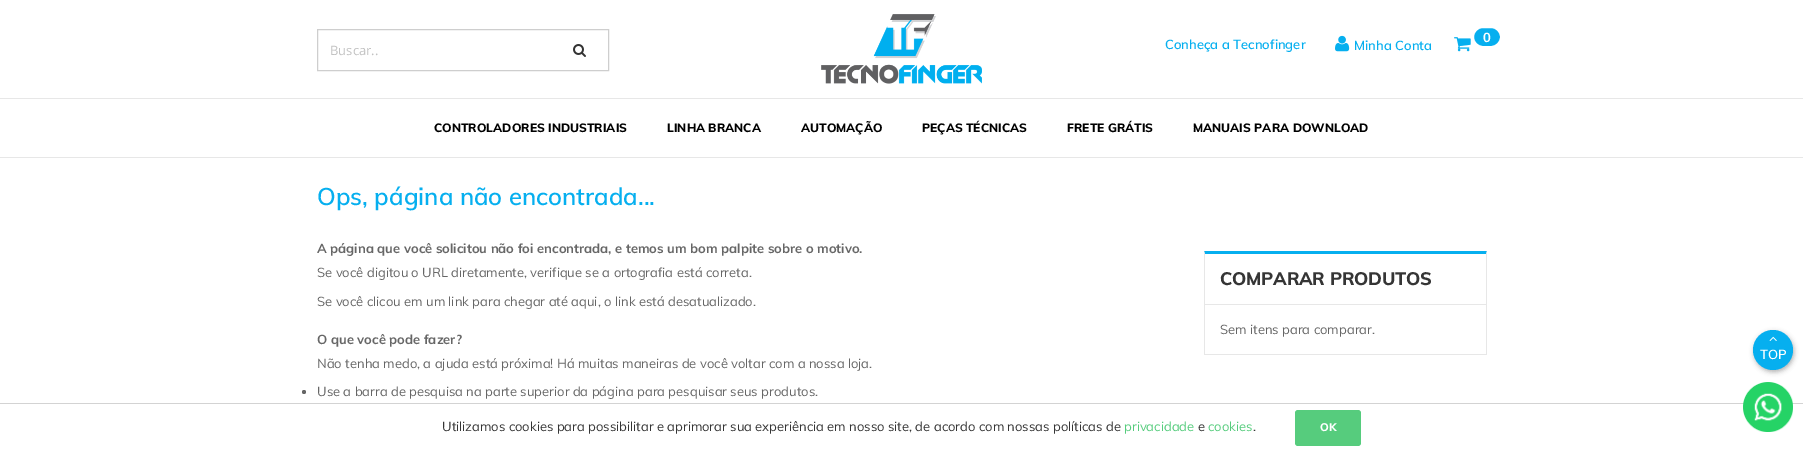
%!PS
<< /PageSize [1803 452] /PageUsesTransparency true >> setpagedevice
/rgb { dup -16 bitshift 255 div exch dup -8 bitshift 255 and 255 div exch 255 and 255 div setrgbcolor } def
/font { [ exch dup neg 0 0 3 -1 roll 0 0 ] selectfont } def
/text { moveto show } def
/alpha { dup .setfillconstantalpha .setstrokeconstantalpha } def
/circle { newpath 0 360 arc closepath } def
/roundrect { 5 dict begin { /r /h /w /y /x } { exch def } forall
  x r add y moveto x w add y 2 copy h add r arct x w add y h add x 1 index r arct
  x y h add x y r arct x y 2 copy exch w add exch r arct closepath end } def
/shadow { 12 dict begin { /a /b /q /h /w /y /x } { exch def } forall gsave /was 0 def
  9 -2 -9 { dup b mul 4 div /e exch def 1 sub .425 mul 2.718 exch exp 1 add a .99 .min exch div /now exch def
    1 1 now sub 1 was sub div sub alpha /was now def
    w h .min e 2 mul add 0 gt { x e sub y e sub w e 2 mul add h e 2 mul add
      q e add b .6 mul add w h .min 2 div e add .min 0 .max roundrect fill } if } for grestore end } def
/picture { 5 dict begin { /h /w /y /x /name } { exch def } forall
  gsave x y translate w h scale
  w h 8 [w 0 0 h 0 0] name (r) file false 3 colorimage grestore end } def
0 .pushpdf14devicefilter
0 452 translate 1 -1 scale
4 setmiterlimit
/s1 { /OpenSans-Regular 13 font 16#C2C2C2 rgb } def
/s2 { /Muli-Bold 13 font 16#FFFFFF rgb } def
/s3 { /Muli-SemiBold 13 font 16#06AFEF rgb } def
/s4 { /Muli-ExtraBold 12 font 16#000000 rgb } def
/s5 { /Muli-SemiBold 24 font 16#06AFEF rgb } def
/s6 { /Muli-Bold 13 font 16#666666 rgb } def
/s7 { /Muli-Regular 13 font 16#666666 rgb } def
/s8 { /Muli-SemiBold 13 font 16#FFFFFF rgb } def
/s9 { /Muli-Regular 13 font 16#353535 rgb } def
/s10 { /Muli-Regular 13 font 16#56CC7D rgb } def
/s11 { /Muli-ExtraBold 11 font 16#FFFFFF rgb } def
16#FFFFFF rgb
0 0 1803 452 rectfill
16#CECECE rgb
317.5 29.5 291 41 rectstroke
s1
(Buscar..) 330 55 text
(pic1.raw) 573 44 13 13 picture
(pic2.raw) 821 14 161 70 picture
(pic3.raw) 1454 37 17 15 picture
16#06AFEF rgb
1473 27 28 20 10 roundrect gsave fill grestore
16#FFFFFF rgb
2 setlinewidth
stroke
s2
(0) 1483 42 text
s3
(Conheça a Tecnofinger) 1165 49 text
(pic4.raw) 1335 35 15 17 picture
(Minha Conta) 1354 50 text
16#E7E7E7 rgb
0 98 1803 1 rectfill
0 157 1803 1 rectfill
s4
(CONTROLADORES INDUSTRIAIS) 434 132 text
(LINHA BRANCA) 667 132 text
(AUTOMAÇÃO) 801 132 text
(PEÇAS TÉCNICAS) 922 132 text
(FRETE GRÁTIS) 1067 132 text
(MANUAIS PARA DOWNLOAD) 1193 132 text
s5
(Ops, página não encontrada...) 317 205 text
s6
(A página que você solicitou não foi encontrada, e temos um bom palpite sobre o motivo.) 317 253 text
s7
(Se você digitou o URL diretamente, verifique se a ortografia está correta.) 317 277 text
(Se você clicou em um link para chegar até aqui, o link está desatualizado.) 317 306 text
s6
(O que você pode fazer?) 317 344 text
s7
(Não tenha medo, a ajuda está próxima! Há muitas maneiras de você voltar com a nossa loja.) 317 368 text
304 392 2 circle fill
(Use a barra de pesquisa na parte superior da página para pesquisar seus produtos.) 317 396 text
16#06AFEF rgb
1204 251 moveto 1487 251 lineto 1486 254 lineto 1205 254 lineto closepath fill
16#E7E7E7 rgb
1487 251 moveto 1487 355 lineto 1486 354 lineto 1486 254 lineto closepath fill
1204 354 283 1 rectfill
1204 355 moveto 1204 251 lineto 1205 254 lineto 1205 354 lineto closepath fill
1205 304 281 1 rectfill
/Muli-ExtraBold 18 font
16#353535 rgb
1220 285 moveto -0.25 0 (COMPARAR PRODUTOS) ashow
s7
(Sem itens para comparar.) 1220 334 text
16#000000 rgb
1754 332 40 40 20 2.5 0.3 shadow
16#06AFEF rgb
1773 350 20 circle fill
(pic5.raw) 1769 336 8 5 picture
s8
(TOP) 1760 359 text
16#D3D3D3 rgb
0 403 1803 1 rectfill
(pic6.raw) 1743 382 50 50 picture
s9
(Utilizamos cookies para possibilitar e aprimorar sua experiência em nosso site, de acordo com nossas políticas de) 442 431 text
s10
(privacidade) 1124 431 text
s9
(e) 1198 431 text
s10
(cookies) 1208 431 text
s9
(.) 1253 431 text
16#56CC7D rgb
1295 410 66 36 3 roundrect fill
s11
(OK) 1320 431 text
.poppdf14devicefilter showpage
